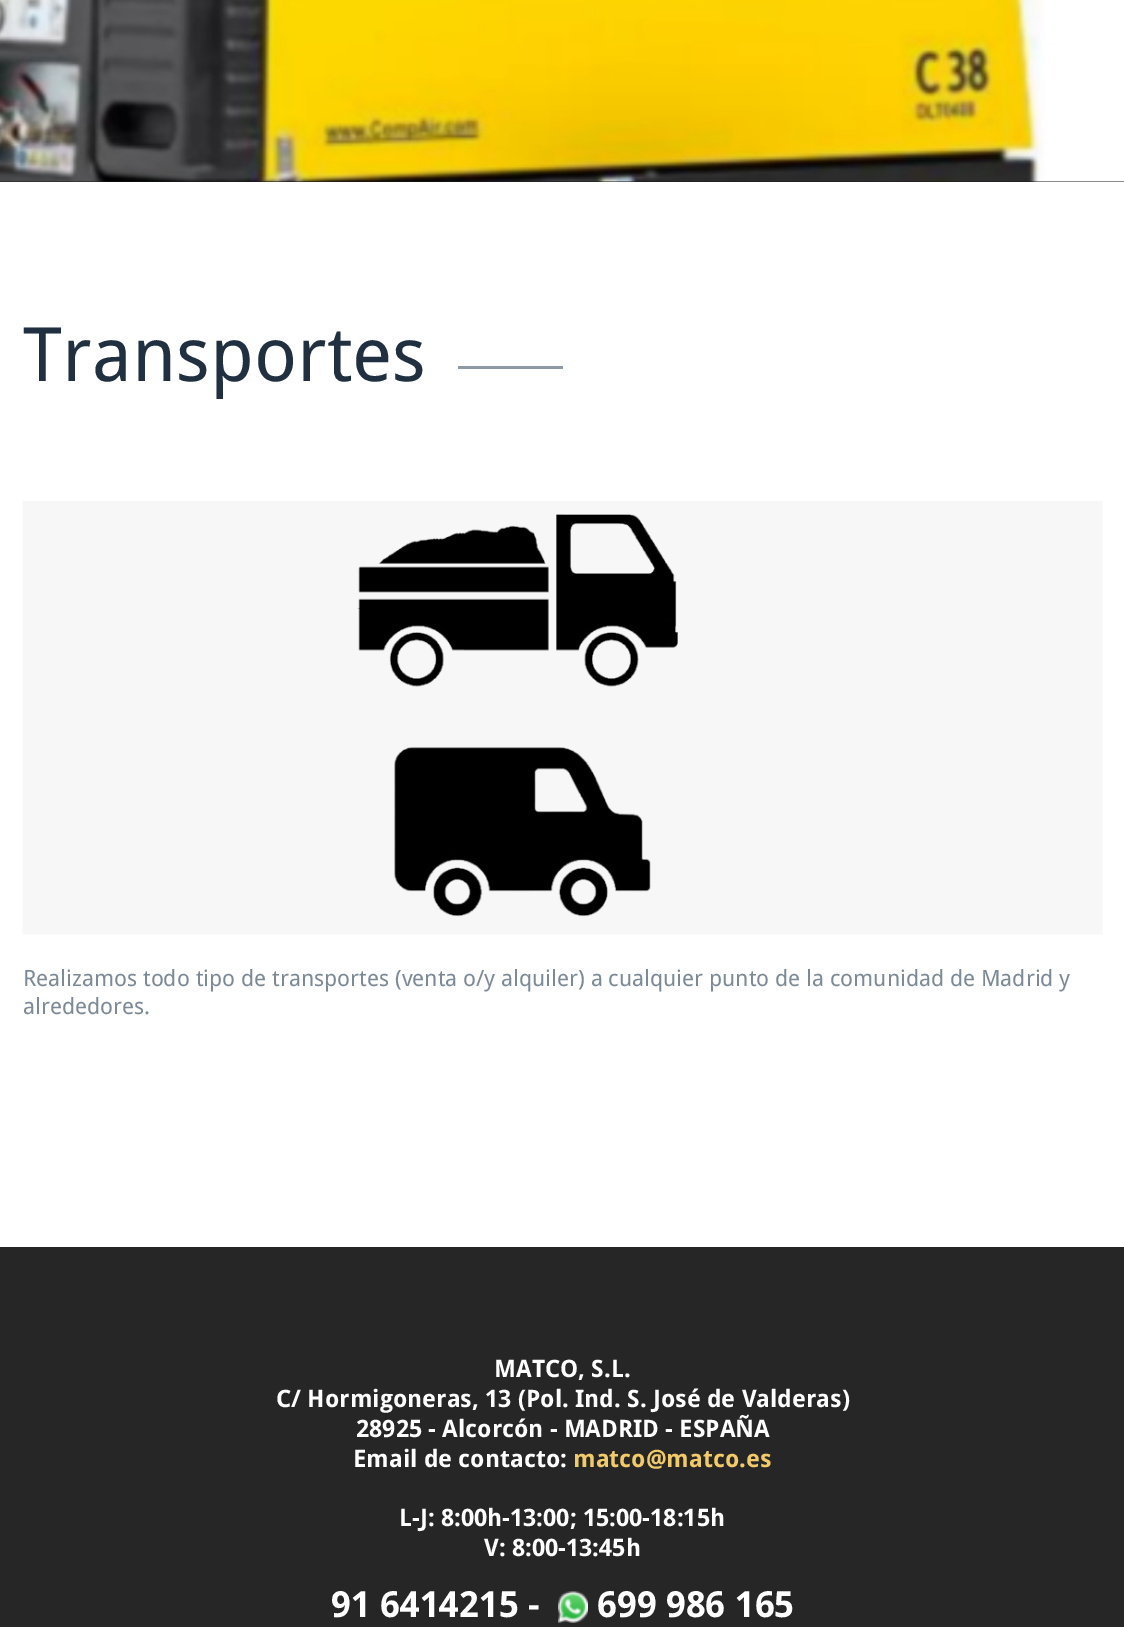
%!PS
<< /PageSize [1124 1627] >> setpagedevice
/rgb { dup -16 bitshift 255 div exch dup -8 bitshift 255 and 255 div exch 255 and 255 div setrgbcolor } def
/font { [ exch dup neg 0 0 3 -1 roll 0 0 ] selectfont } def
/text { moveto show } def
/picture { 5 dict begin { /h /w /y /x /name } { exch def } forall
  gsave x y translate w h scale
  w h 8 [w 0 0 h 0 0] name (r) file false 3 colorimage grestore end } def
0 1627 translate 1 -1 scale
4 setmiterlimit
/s1 { /DroidSans-Regular 75 font 16#203040 rgb } def
/s2 { /DroidSans-Regular 22.5 font 16#7C8A97 rgb } def
/s3 { /DroidSans-Bold 24 font 16#FFFFFF rgb } def
/s4 { /DroidSans-Bold 24 font 16#F2CA68 rgb } def
/s5 { /DroidSans-Bold 36 font 16#FFFFFF rgb } def
16#FFFFFF rgb
0 0 1124 1627 rectfill
16#191919 rgb
0 181 1124 1 rectfill
(pic1.raw) 0 0 1124 182 picture
s1
(Transportes) 23 381 text
16#8E9AA6 rgb
458 366 105 3 rectfill
(pic2.raw) 22 501 1081 434 picture
s2
(Realizamos todo tipo de transportes \(venta o/y alquiler\) a cualquier punto de la comunidad de Madrid y) 23 986 text
(alrededores.) 23 1014 text
16#262626 rgb
0 1247 1124 380 rectfill
s3
(MATCO, S.L.) 494 1377 text
(C/ Hormigoneras, 13 \(Pol. Ind. S. José de Valderas\)) 276 1407 text
(28925 - Alcorcón - MADRID - ESPAÑA) 356 1437 text
(Email de contacto:) 353 1467 text
s4
(matco@matco.es) 573 1467 text
s3
(L-J: 8:00h-13:00; 15:00-18:15h) 399 1526 text
(V: 8:00-13:45h) 484 1556 text
s5
(91 6414215 -) 331 1617 text
(pic3.raw) 558 1591 30 32 picture
(699 986 165) 597 1617 text
showpage
